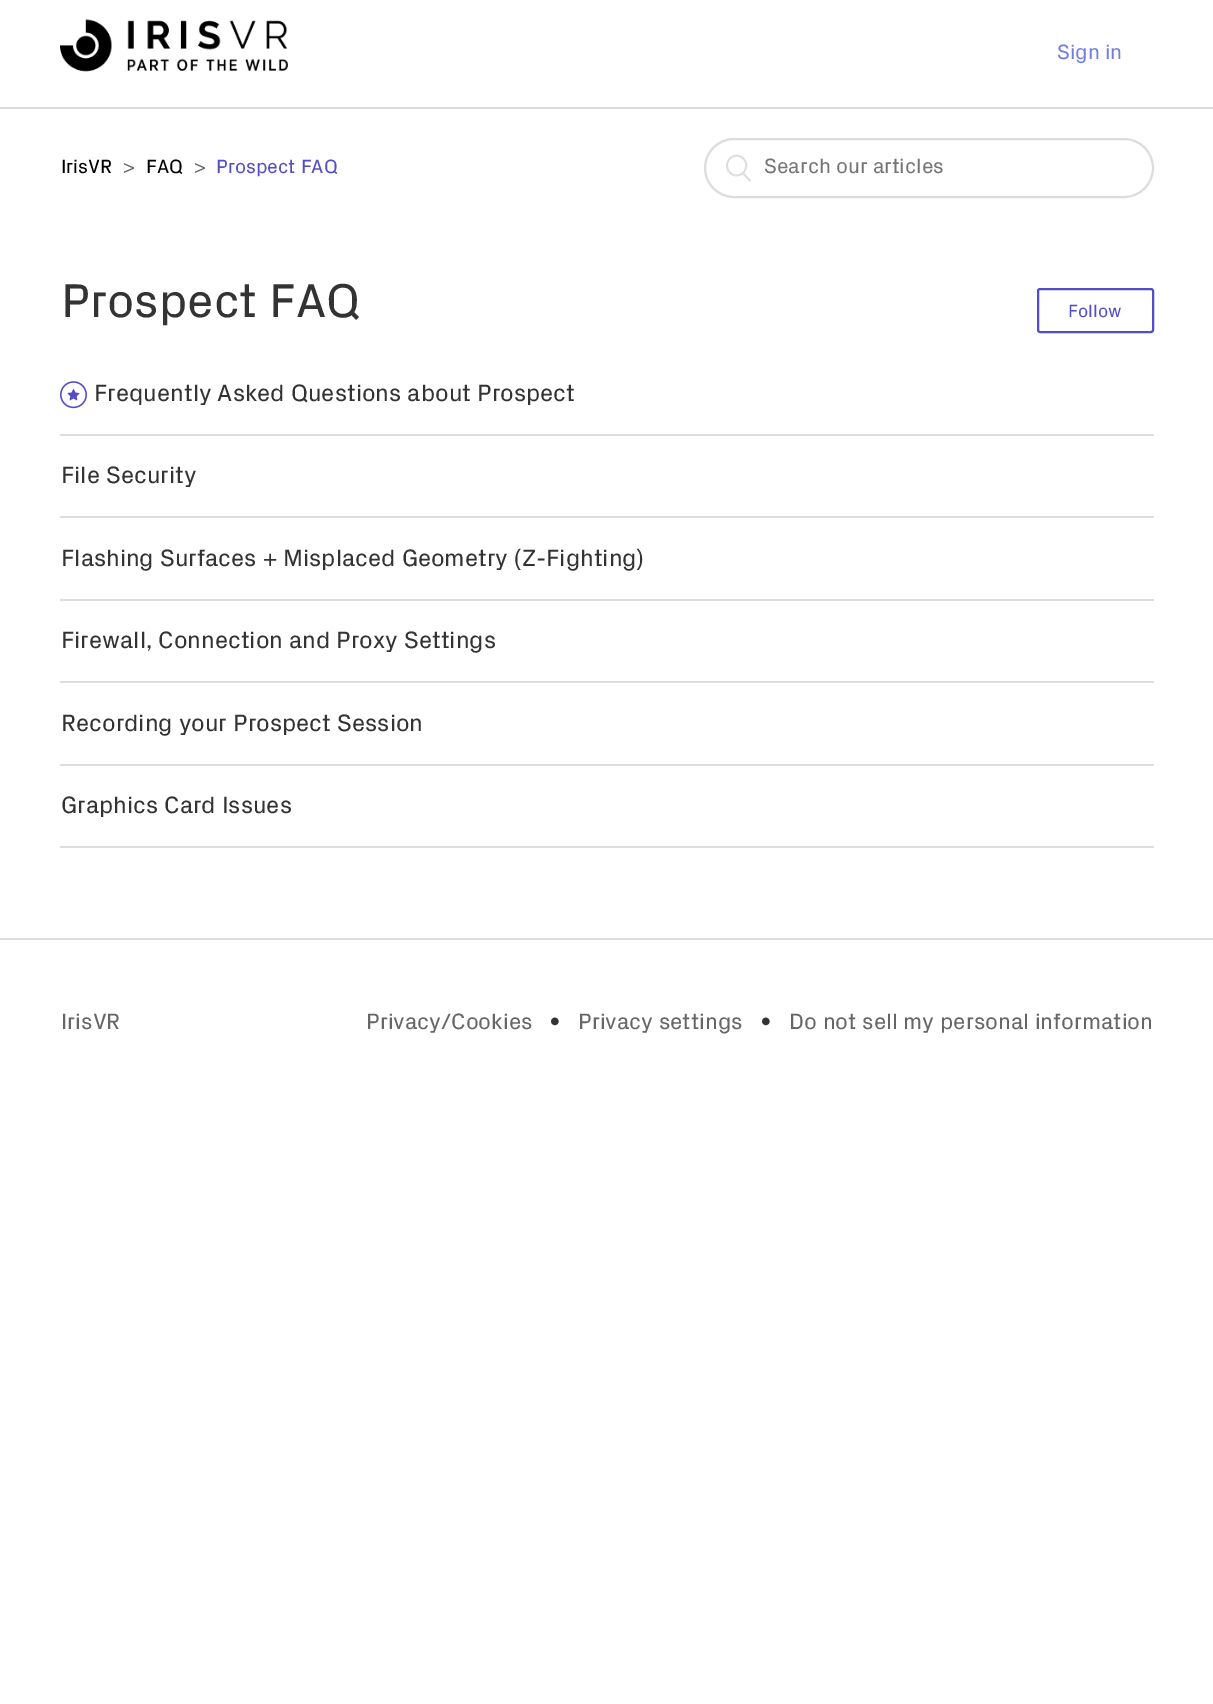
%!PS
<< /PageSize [1213 1704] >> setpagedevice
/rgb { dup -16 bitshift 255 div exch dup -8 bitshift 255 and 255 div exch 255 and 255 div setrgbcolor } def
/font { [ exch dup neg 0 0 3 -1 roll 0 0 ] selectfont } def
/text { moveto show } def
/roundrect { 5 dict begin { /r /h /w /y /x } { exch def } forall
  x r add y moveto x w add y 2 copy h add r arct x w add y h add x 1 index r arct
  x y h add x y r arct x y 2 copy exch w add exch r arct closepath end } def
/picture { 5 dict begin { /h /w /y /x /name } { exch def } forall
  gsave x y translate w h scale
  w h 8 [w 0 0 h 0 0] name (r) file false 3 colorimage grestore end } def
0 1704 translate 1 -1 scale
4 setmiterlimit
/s1 { /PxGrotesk-Regular 21 font 16#727FE0 rgb } def
/s2 { /PxGrotesk-Regular 19.5 font 16#000000 rgb } def
/s3 { /PxGrotesk-Regular 19.5 font 16#666666 rgb } def
/s4 { /PxGrotesk-Regular 19.5 font 16#534DC8 rgb } def
/s5 { /PxGrotesk-Regular 21 font 16#757575 rgb } def
/s6 { /PxGrotesk-Regular 48 font 16#333333 rgb } def
/s7 { /PxGrotesk-Regular 18 font 16#534DC8 rgb } def
/s8 { /PxGrotesk-Regular 24 font 16#333333 rgb } def
/s9 { /PxGrotesk-Regular 22.5 font 16#666666 rgb } def
/s10 { /PxGrotesk-Regular 22.5 font 16#333333 rgb } def
16#FFFFFF rgb
0 0 1213 1704 rectfill
(pic1.raw) 60 19 228 53 picture
s1
(Sign in) 1057 59 text
16#DDDDDD rgb
0 107 1213 2 rectfill
s2
(IrisVR) 61 173 text
s3
(>) 123 173 text
s2
(FAQ) 146 173 text
s3
(>) 194 173 text
s4
(Prospect FAQ) 216 173 text
16#DDDDDD rgb
2 setlinewidth
705 139 448 58 29 roundrect stroke
(pic2.raw) 726 154 25 28 picture
s5
(Search our articles) 764 173 text
s6
(Prospect FAQ) 61 317 text
16#534DC8 rgb
1038 289 115 43 2 roundrect stroke
s7
(Follow) 1068 317 text
16#DDDDDD rgb
60 434 1094 2 rectfill
(pic3.raw) 60 381 27 28 picture
s8
(Frequently Asked Questions about Prospect) 94 401 text
16#DDDDDD rgb
60 516 1094 2 rectfill
s8
(File Security) 61 483 text
16#DDDDDD rgb
60 599 1094 2 rectfill
s8
(Flashing Surfaces + Misplaced Geometry \(Z-Fighting\)) 61 566 text
16#DDDDDD rgb
60 681 1094 2 rectfill
s8
(Firewall, Connection and Proxy Settings) 61 648 text
16#DDDDDD rgb
60 764 1094 2 rectfill
s8
(Recording your Prospect Session) 61 731 text
16#DDDDDD rgb
60 846 1094 2 rectfill
s8
(Graphics Card Issues) 61 813 text
16#DDDDDD rgb
0 938 1213 2 rectfill
s9
(IrisVR) 61 1029 text
(Privacy/Cookies) 366 1029 text
s10
(•) 549 1029 text
s9
(Privacy settings) 578 1029 text
s10
(•) 760 1029 text
s9
(Do not sell my personal information) 789 1029 text
showpage
